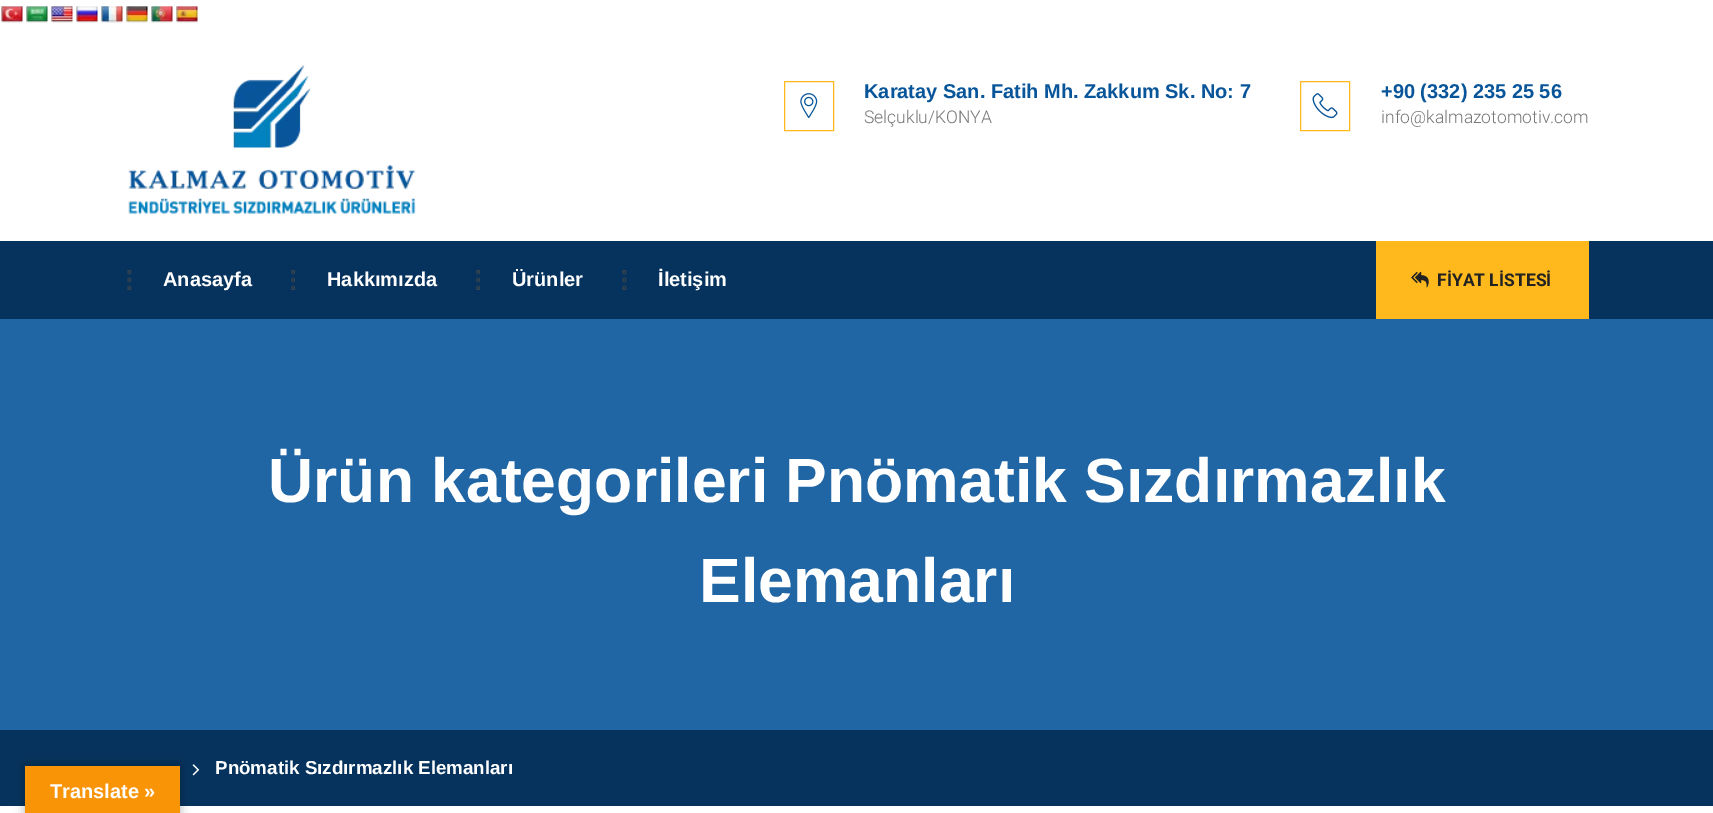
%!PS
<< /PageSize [1713 813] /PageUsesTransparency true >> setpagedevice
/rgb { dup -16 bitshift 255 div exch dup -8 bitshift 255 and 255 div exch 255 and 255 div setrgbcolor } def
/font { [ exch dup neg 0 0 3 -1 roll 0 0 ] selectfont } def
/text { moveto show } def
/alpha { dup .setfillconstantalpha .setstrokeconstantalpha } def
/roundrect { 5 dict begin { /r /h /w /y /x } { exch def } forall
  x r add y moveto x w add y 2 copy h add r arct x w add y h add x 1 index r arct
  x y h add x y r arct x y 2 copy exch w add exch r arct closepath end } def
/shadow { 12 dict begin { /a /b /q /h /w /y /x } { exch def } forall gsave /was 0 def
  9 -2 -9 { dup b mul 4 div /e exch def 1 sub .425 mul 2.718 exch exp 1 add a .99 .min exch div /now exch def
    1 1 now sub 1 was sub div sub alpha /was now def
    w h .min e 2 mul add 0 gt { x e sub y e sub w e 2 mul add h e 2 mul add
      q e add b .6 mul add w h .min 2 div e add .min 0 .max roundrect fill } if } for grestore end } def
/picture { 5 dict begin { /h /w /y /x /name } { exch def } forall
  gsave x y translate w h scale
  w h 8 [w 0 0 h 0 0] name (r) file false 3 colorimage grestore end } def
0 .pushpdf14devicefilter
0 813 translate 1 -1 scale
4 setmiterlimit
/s1 { /LiberationSans-Bold 20 font 16#08559A rgb } def
/s2 { /Roboto-Light 17.5 font 16#777777 rgb } def
/s3 { /LiberationSans-Bold 20 font 16#FFFFFF rgb } def
/s4 { /Roboto-Bold 17.5 font 16#222222 rgb } def
/s5 { /LiberationSans-Bold 62.5 font 16#FFFFFF rgb } def
/s6 { /LiberationSans-Bold 18.75 font 16#FFFFFF rgb } def
16#FFFFFF rgb
0 0 1713 813 rectfill
(pic1.raw) 1 6 22 17 picture
(pic2.raw) 26 6 22 17 picture
(pic3.raw) 51 6 22 17 picture
(pic4.raw) 76 6 22 17 picture
(pic5.raw) 101 6 22 17 picture
(pic6.raw) 126 6 22 17 picture
(pic7.raw) 151 6 22 17 picture
(pic8.raw) 176 6 22 17 picture
(pic9.raw) 128 65 288 149 picture
16#FFB91D rgb
784.5 81.5 49 49 rectstroke
(pic10.raw) 800 93 18 26 picture
s1
(Karatay San. Fatih Mh. Zakkum Sk. No: 7) 864 98 text
s2
(Selçuklu/KONYA) 864 123 text
16#FFB91D rgb
1300.5 81.5 49 49 rectstroke
(pic11.raw) 1312 93 26 26 picture
s1
(+90 \(332\) 235 25 56) 1381 98 text
s2
(info@kalmazotomotiv.com) 1381 123 text
16#06335D rgb
0 241 1713 78 rectfill
(pic12.raw) 127 270 5 20 picture
s3
(Anasayfa) 163 286 text
(pic13.raw) 291 270 4 20 picture
(Hakkımızda) 327 286 text
(pic13.raw) 476 270 4 20 picture
(Ürünler) 512 286 text
(pic12.raw) 622 270 5 20 picture
(İletişim) 658 286 text
16#FFB91D rgb
1376 241 213 78 rectfill
(pic14.raw) 1411 271 18 17 picture
s4
(FİYAT LİSTESİ) 1437 286 text
16#2166A4 rgb
0 319 1713 411 rectfill
s5
(Ürün kategorileri Pnömatik Sızdırmazlık) 268 502 text
(Elemanları) 699 602 text
16#06335D rgb
0 730 1713 76 rectfill
(pic15.raw) 192 764 8 12 picture
s6
(Pnömatik Sızdırmazlık Elemanları) 215 774 text
16#000000 rgb
25 766 155 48 0 5.5 0.3 shadow
16#F89406 rgb
25 766 155 47 rectfill
s3
(Translate ») 50 798 text
.poppdf14devicefilter showpage
